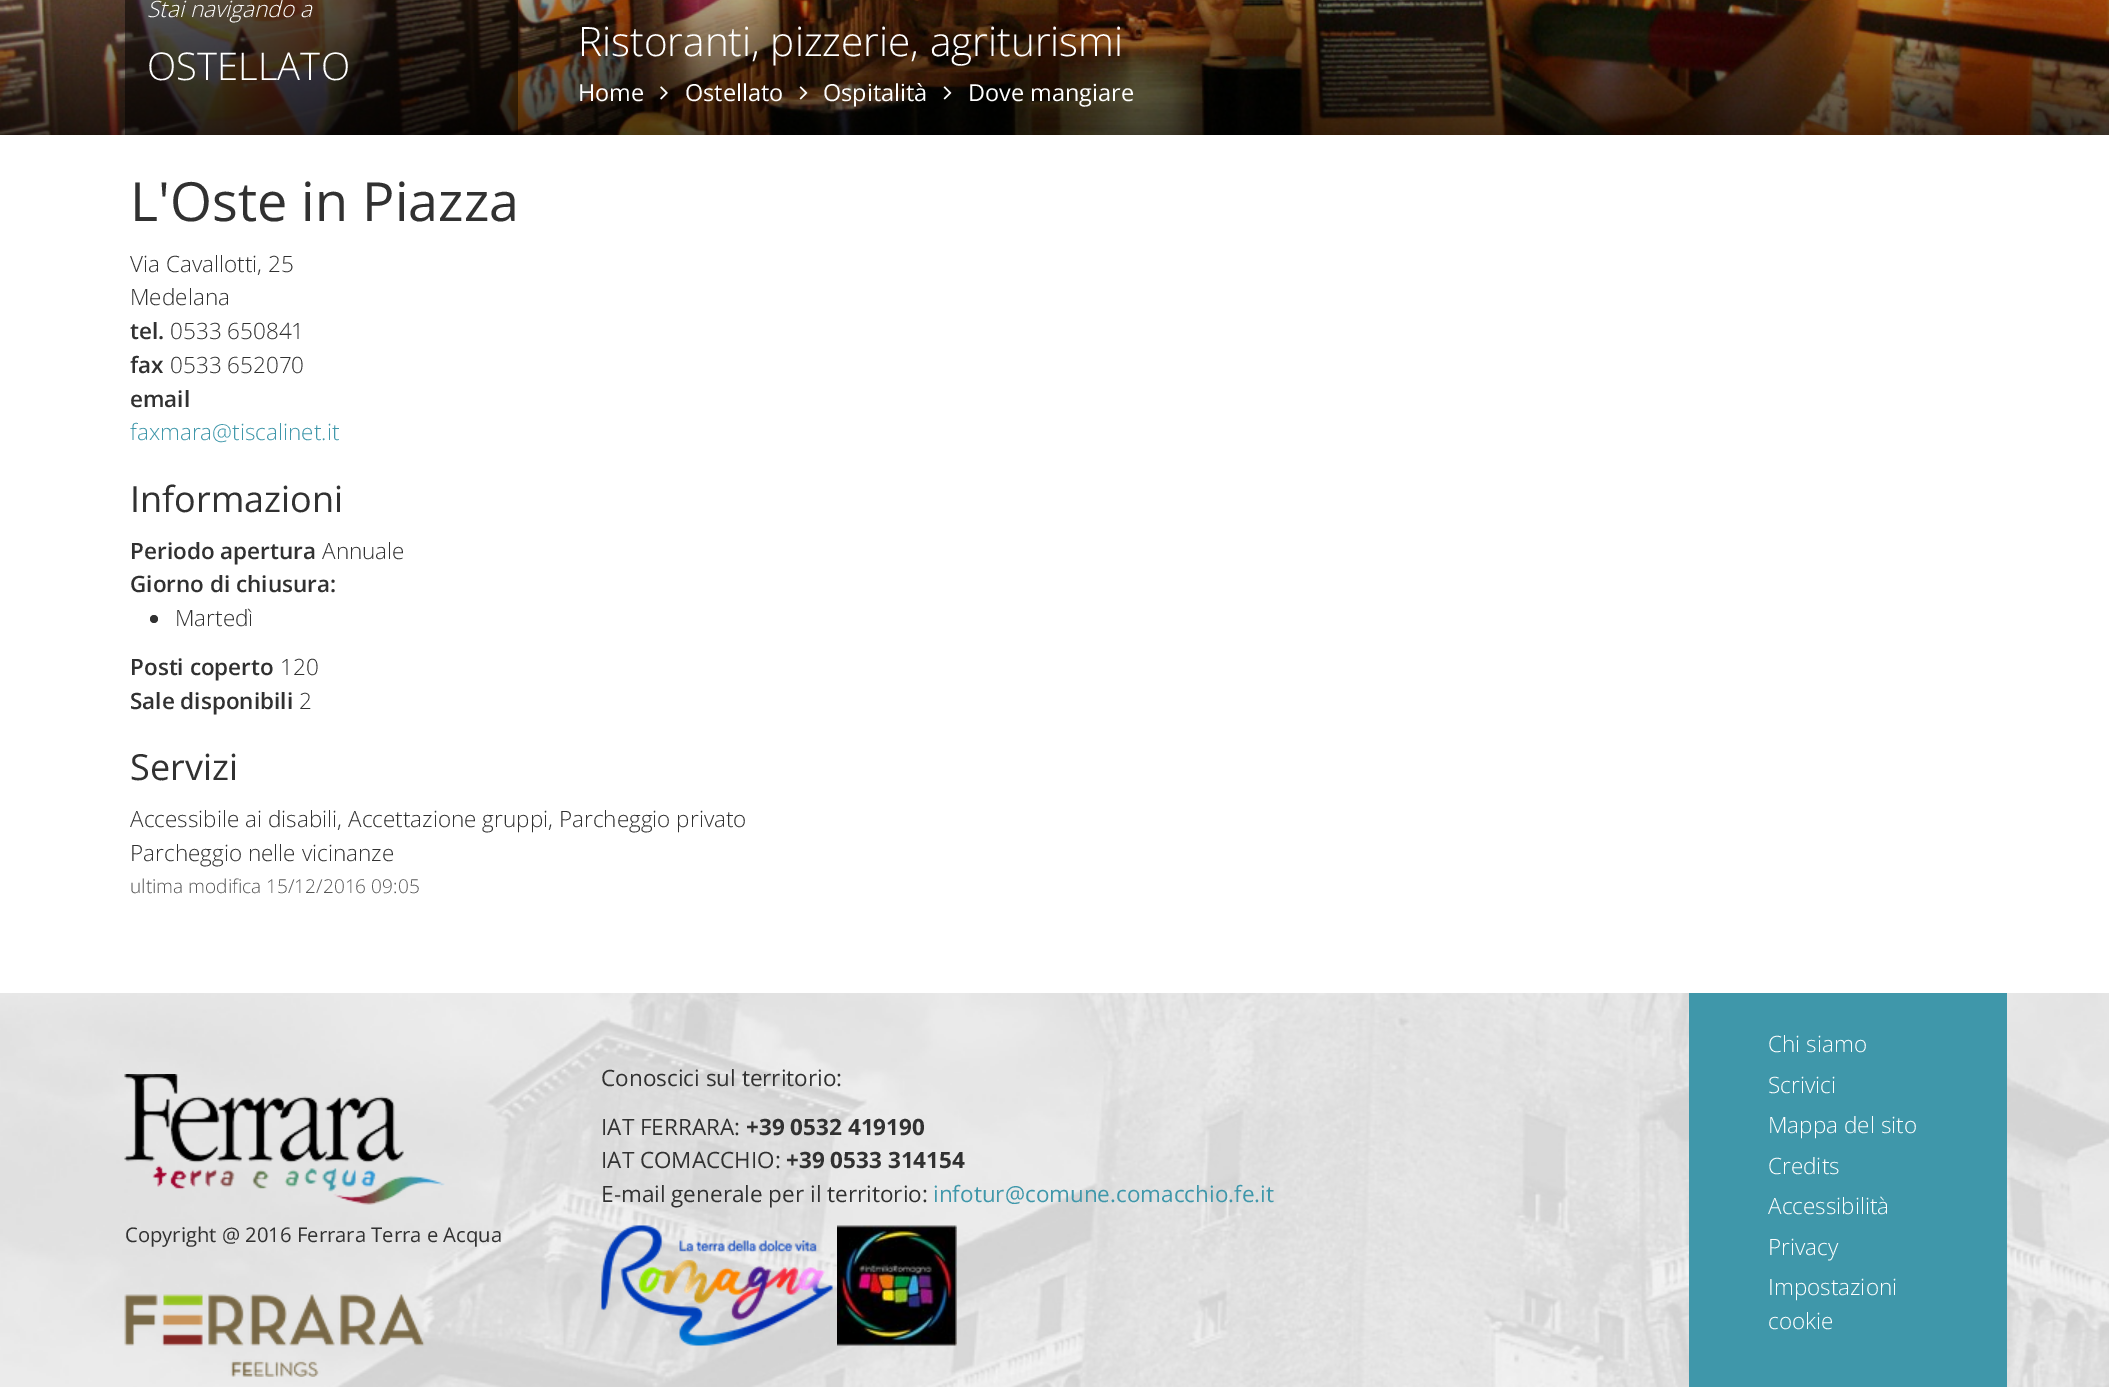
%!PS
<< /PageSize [2109 1387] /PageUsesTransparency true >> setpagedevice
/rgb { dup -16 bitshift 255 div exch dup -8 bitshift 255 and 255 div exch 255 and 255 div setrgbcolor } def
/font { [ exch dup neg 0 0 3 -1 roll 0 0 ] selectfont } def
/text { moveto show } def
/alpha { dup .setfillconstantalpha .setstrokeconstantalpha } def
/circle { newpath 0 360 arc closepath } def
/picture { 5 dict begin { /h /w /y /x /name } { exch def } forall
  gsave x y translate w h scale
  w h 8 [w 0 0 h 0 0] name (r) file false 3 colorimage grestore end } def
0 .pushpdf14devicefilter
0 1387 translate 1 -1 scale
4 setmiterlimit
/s1 { /OpenSans-LightItalic 22.5 font 16#FFFFFF rgb } def
/s2 { /OpenSans-Light 38.25 font 16#FFFFFF rgb } def
/s3 { /OpenSans-Light 40.5 font 16#FFFFFF rgb } def
/s4 { /OpenSans-Regular 23.5 font 16#FFFFFF rgb } def
/s5 { /OpenSans-Regular 54 font 16#313131 rgb } def
/s6 { /OpenSans-Light 22.5 font 16#313131 rgb } def
/s7 { /OpenSans-SemiBold 22.5 font 16#313131 rgb } def
/s8 { /OpenSans-Light 22.5 font 16#3F97AA rgb } def
/s9 { /OpenSans-Regular 36 font 16#313131 rgb } def
/s10 { /OpenSans-Light 19.1 font 16#555555 rgb } def
/s11 { /OpenSans-Regular 22.5 font 16#313131 rgb } def
/s12 { /OpenSans-Bold 22.5 font 16#313131 rgb } def
/s13 { /OpenSans-Regular 22.5 font 16#3F97AA rgb } def
/s14 { /OpenSans-Light 22.5 font 16#FFFFFF rgb } def
/s15 { /OpenSans-Regular 20.25 font 16#313131 rgb } def
16#FFFFFF rgb
0 0 2109 1387 rectfill
(pic1.raw) 0 0 2109 135 picture
0.5 alpha
16#000000 rgb
125 0 393 135 rectfill
1 alpha
s1
(Stai navigando a) 147 17 text
s2
(OSTELLATO) 147 80 text
s3
(Ristoranti, pizzerie, agriturismi) 578 56 text
s4
(Home) 578 101 text
(pic2.raw) 660 86 8 14 picture
(Ostellato) 685 101 text
(pic3.raw) 799 86 9 14 picture
(Ospitalità) 823 101 text
(pic4.raw) 943 86 9 14 picture
(Dove mangiare) 968 101 text
s5
(L'Oste in Piazza) 130 221 text
s6
(Via Cavallotti, 25) 130 272 text
(Medelana) 130 305 text
s7
(tel.) 130 339 text
s6
(0533 650841) 170 339 text
s7
(fax) 130 373 text
s6
(0533 652070) 170 373 text
s7
(email) 130 407 text
s8
(faxmara@tiscalinet.it) 130 440 text
s9
(Informazioni) 130 512 text
s7
(Periodo apertura) 130 559 text
s6
(Annuale) 322 559 text
s7
(Giorno di chiusura:) 130 592 text
154 619 4 circle fill
s6
(Martedì) 175 626 text
s7
(Posti coperto) 130 675 text
s6
(120) 280 675 text
s7
(Sale disponibili) 130 709 text
s6
(2) 299 709 text
s9
(Servizi) 130 780 text
s6
(Accessibile ai disabili, Accettazione gruppi, Parcheggio privato) 130 827 text
(Parcheggio nelle vicinanze) 130 861 text
s10
(ultima modifica 15/12/2016 09:05) 130 893 text
(pic5.raw) 0 993 2109 394 picture
s11
(Conoscici sul territorio:) 601 1086 text
(IAT FERRARA:) 601 1135 text
s12
(+39 0532 419190) 746 1135 text
s11
(IAT COMACCHIO:) 601 1168 text
s12
(+39 0533 314154) 786 1168 text
s11
(E-mail generale per il territorio:) 601 1202 text
s13
(infotur@comune.comacchio.fe.it) 933 1202 text
(pic6.raw) 601 1225 232 121 picture
(pic7.raw) 837 1225 120 121 picture
1689 993 318 394 rectfill
s14
(Chi siamo) 1768 1052 text
(Scrivici) 1768 1093 text
(Mappa del sito) 1768 1133 text
(Credits) 1768 1174 text
(Accessibilità) 1768 1214 text
(Privacy) 1768 1255 text
(Impostazioni) 1768 1295 text
(cookie) 1768 1329 text
(pic8.raw) 124 1074 321 131 picture
s15
(Copyright @ 2016 Ferrara Terra e Acqua) 125 1242 text
(pic9.raw) 124 1294 301 83 picture
.poppdf14devicefilter showpage
